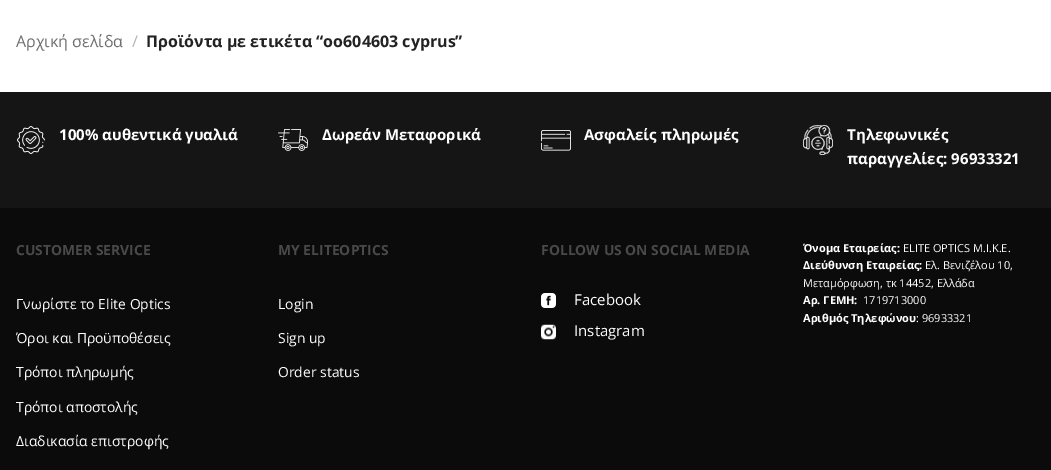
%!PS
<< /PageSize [1051 470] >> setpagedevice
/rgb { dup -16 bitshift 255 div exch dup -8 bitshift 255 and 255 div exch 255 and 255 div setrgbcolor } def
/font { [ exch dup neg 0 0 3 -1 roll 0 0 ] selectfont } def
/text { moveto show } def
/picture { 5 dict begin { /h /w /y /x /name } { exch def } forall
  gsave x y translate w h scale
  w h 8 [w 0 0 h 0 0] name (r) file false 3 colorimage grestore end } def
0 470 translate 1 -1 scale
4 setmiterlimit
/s1 { /OpenSans-Regular 16 font 16#6E6E6E rgb } def
/s2 { /OpenSans-Regular 16 font 16#B2B2B2 rgb } def
/s3 { /OpenSans-Bold 16 font 16#222222 rgb } def
/s4 { /OpenSans-Bold 15 font 16#FFFFFF rgb } def
/s5 { /OpenSans-Bold 13.9 font 16#4A4A4A rgb } def
/s6 { /OpenSans-Regular 13.9 font 16#FFFFFF rgb } def
/s7 { /OpenSans-Regular 15 font 16#FFFFFF rgb } def
/s8 { /OpenSans-Bold 11 font 16#FFFFFF rgb } def
/s9 { /OpenSans-Regular 11 font 16#FFFFFF rgb } def
16#FFFFFF rgb
0 0 1051 470 rectfill
s1
(Αρχική σελίδα) 16 47 text
s2
(/) 132 47 text
s3
(Προϊόντα με ετικέτα “oo604603 cyprus”) 146 47 text
16#151515 rgb
0 92 1051 116 rectfill
(pic1.raw) 17 126 28 28 picture
s4
(100% αυθεντικά γυαλιά) 59 140 text
(pic2.raw) 278 129 30 22 picture
(Δωρεάν Μεταφορικά) 322 140 text
(pic3.raw) 541 130 30 21 picture
(Aσφαλείς πληρωμές) 584 140 text
(pic4.raw) 803 125 30 30 picture
(Τηλεφωνικές) 847 140 text
(παραγγελίες: 96933321) 847 164 text
16#0B0B0B rgb
0 208 1051 262 rectfill
s5
(CUSTOMER SERVICE) 16 255 text
s6
(Γνωρίστε το Elite Optics) 16 309 text
(Όροι και Προϋποθέσεις) 16 343 text
(Τρόποι πληρωμής) 16 377 text
(Τρόποι αποστολής) 16 412 text
(Διαδικασία επιστροφής) 16 446 text
s5
(MY ELITEOPTICS) 278 255 text
s6
(Login) 278 309 text
(Sign up) 278 343 text
(Order status) 278 377 text
s5
(FOLLOW US ON SOCIAL MEDIA) 541 255 text
(pic5.raw) 541 293 15 15 picture
s7
(Facebook) 574 305 text
(pic6.raw) 541 324 15 16 picture
(Instagram) 574 336 text
s8
(Όνομα Εταιρείας:) 803 252 text
s9
(ELITE OPTICS M.I.K.E.) 903 252 text
s8
(Διεύθυνση Εταιρείας:) 803 269 text
s9
(Ελ. Βενιζέλου 10,) 925 269 text
(Μεταμόρφωση, τκ 14452, Ελλάδα) 803 287 text
s8
(Αρ. ΓΕΜΗ:) 803 304 text
s9
(1719713000) 863 304 text
s8
(Αριθμός Τηλεφώνου) 803 322 text
s9
(: 96933321) 916 322 text
showpage
